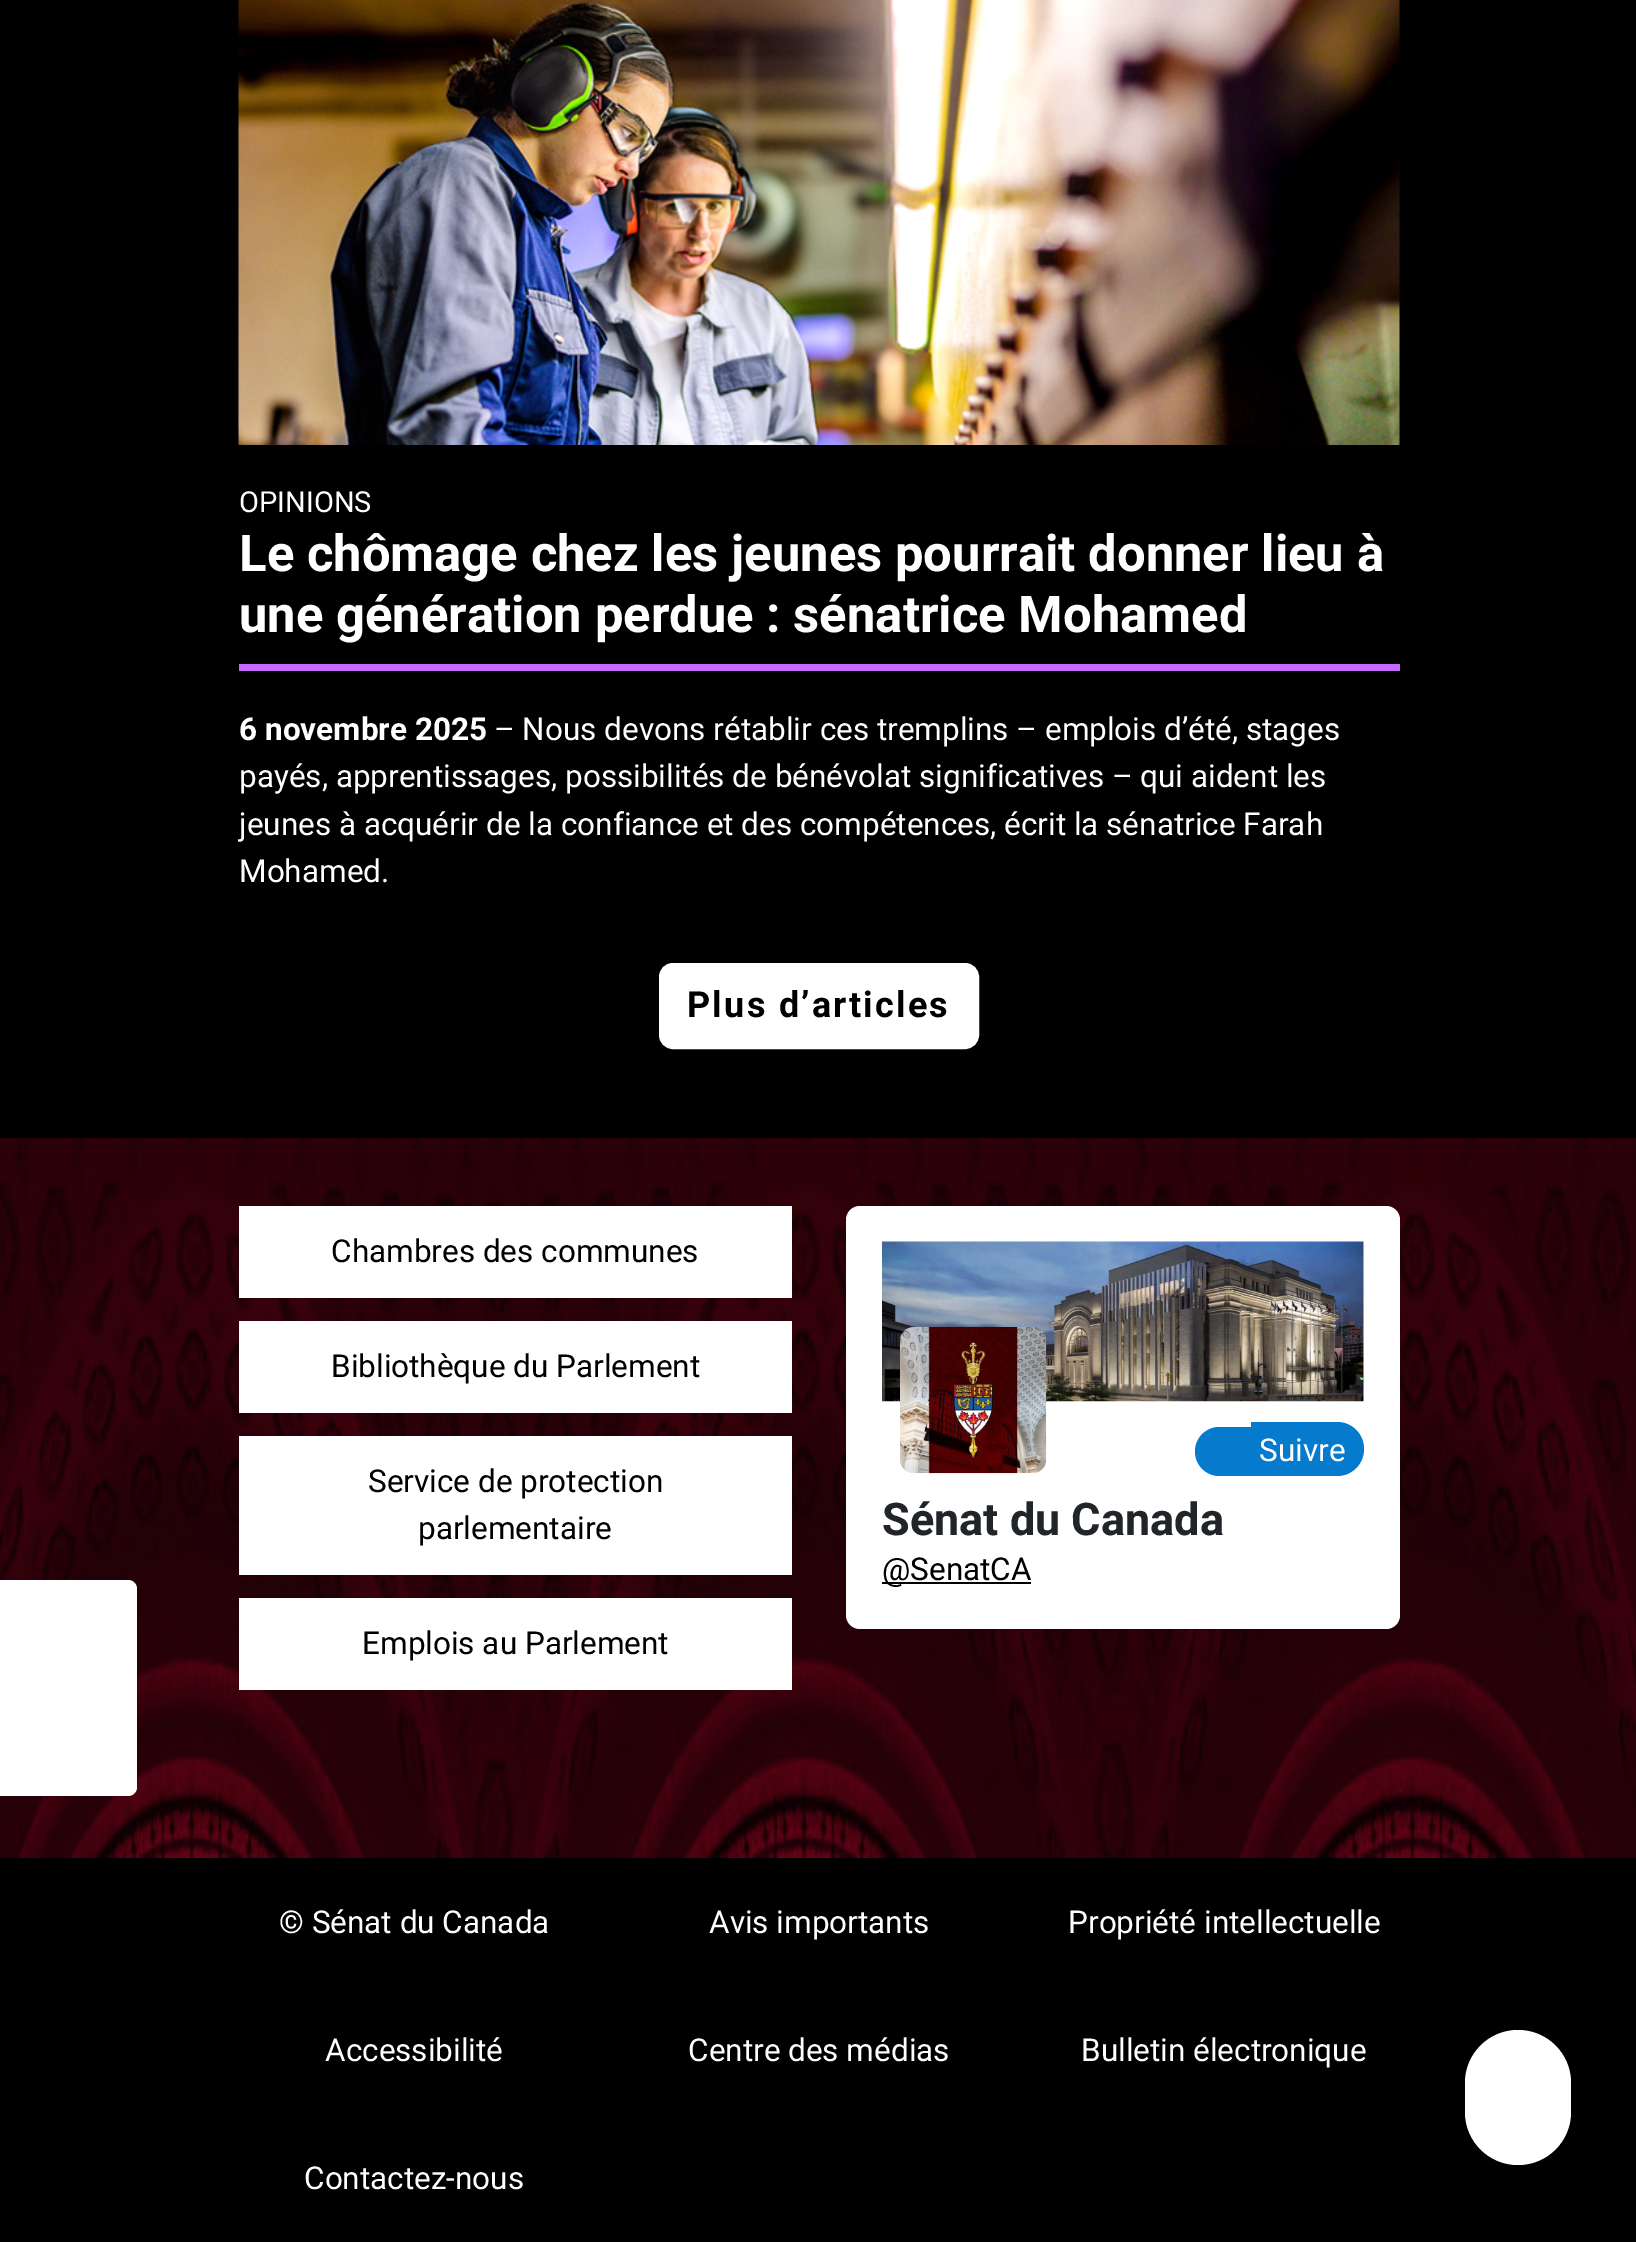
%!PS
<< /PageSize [1636 2242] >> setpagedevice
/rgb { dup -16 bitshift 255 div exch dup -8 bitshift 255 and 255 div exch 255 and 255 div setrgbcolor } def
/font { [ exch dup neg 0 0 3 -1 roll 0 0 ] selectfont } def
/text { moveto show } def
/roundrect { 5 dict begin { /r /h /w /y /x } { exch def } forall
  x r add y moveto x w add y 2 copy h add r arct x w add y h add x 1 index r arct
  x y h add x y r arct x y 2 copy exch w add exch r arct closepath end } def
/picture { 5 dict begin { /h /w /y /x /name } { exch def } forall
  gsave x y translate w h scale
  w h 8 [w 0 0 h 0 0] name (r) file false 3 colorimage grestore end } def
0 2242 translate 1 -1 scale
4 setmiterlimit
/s1 { /Roboto-Regular 29 font 16#FFFFFF rgb } def
/s2 { /Roboto-Bold 50.8 font 16#FFFFFF rgb } def
/s3 { /Roboto-Bold 31.5 font 16#FFFFFF rgb } def
/s4 { /Roboto-Regular 31.5 font 16#FFFFFF rgb } def
/s5 { /Roboto-Regular 31.5 font 16#000000 rgb } def
/s6 { /Roboto-Bold 45 font 16#212529 rgb } def
16#000000 rgb
0 0 1636 2242 rectfill
(pic1.raw) 238 0 1162 445 picture
s1
(OPINIONS) 239 512 text
s2
(Le chômage chez les jeunes pourrait donner lieu à) 239 571 text
(une génération perdue : sénatrice Mohamed) 239 632 text
16#C968FF rgb
239 664 1161 7 rectfill
s3
(6 novembre 2025) 239 740 text
s4
(– Nous devons rétablir ces tremplins – emplois d’été, stages) 494 740 text
(payés, apprentissages, possibilités de bénévolat significatives – qui aident les) 239 787 text
(jeunes à acquérir de la confiance et des compétences, écrit la sénatrice Farah) 239 835 text
(Mohamed.) 239 882 text
660 964 318 84 13 roundrect gsave fill grestore
2 setlinewidth
stroke
/Roboto-Bold 36 font
16#000000 rgb
687 1017 moveto 2.25 0 (Plus d’articles) ashow
(pic2.raw) 0 1138 1636 720 picture
16#FFFFFF rgb
0 1580 moveto 128 1580 lineto 133 1580 137 1584 137 1589 curveto 137 1787 lineto 137 1792 133 1796 128 1796 curveto 0 1796 lineto closepath fill
1465 2030 106 135 53 roundrect fill
239 1206 553 92 rectfill
s5
(Chambres des communes) 331 1262 text
16#FFFFFF rgb
239 1321 553 92 rectfill
s5
(Bibliothèque du Parlement) 331 1377 text
16#FFFFFF rgb
239 1436 553 139 rectfill
s5
(Service de protection) 368 1492 text
(parlementaire) 418 1539 text
16#FFFFFF rgb
239 1598 553 92 rectfill
s5
(Emplois au Parlement) 362 1654 text
16#FFFFFF rgb
846 1206 554 423 14 roundrect fill
(pic3.raw) 882 1241 482 161 picture
(pic4.raw) 900 1327 147 147 picture
16#067ACC rgb
1251 1422 moveto 1337 1422 lineto 1352 1422 1364 1434 1364 1449 curveto 1364 1464 1352 1476 1337 1476 curveto 1251 1476 lineto closepath fill
s4
(Suivre) 1259 1461 text
16#067ACC rgb
1219.5 1427 moveto 1251 1427 lineto 1251 1476 lineto 1219.5 1476 lineto 1206 1476 1195 1465 1195 1451.5 curveto 1195 1438 1206 1427 1219.5 1427 curveto closepath fill
s6
(Sénat du Canada) 882 1535 text
16#000000 rgb
882 1582 149 2 rectfill
s5
(@SenatCA) 882 1580 text
s4
(© Sénat du Canada) 279 1933 text
(Avis importants) 709 1933 text
(Propriété intellectuelle) 1068 1933 text
(Accessibilité) 325 2061 text
(Centre des médias) 688 2061 text
(Bulletin électronique) 1081 2061 text
(Contactez-nous) 304 2189 text
showpage
